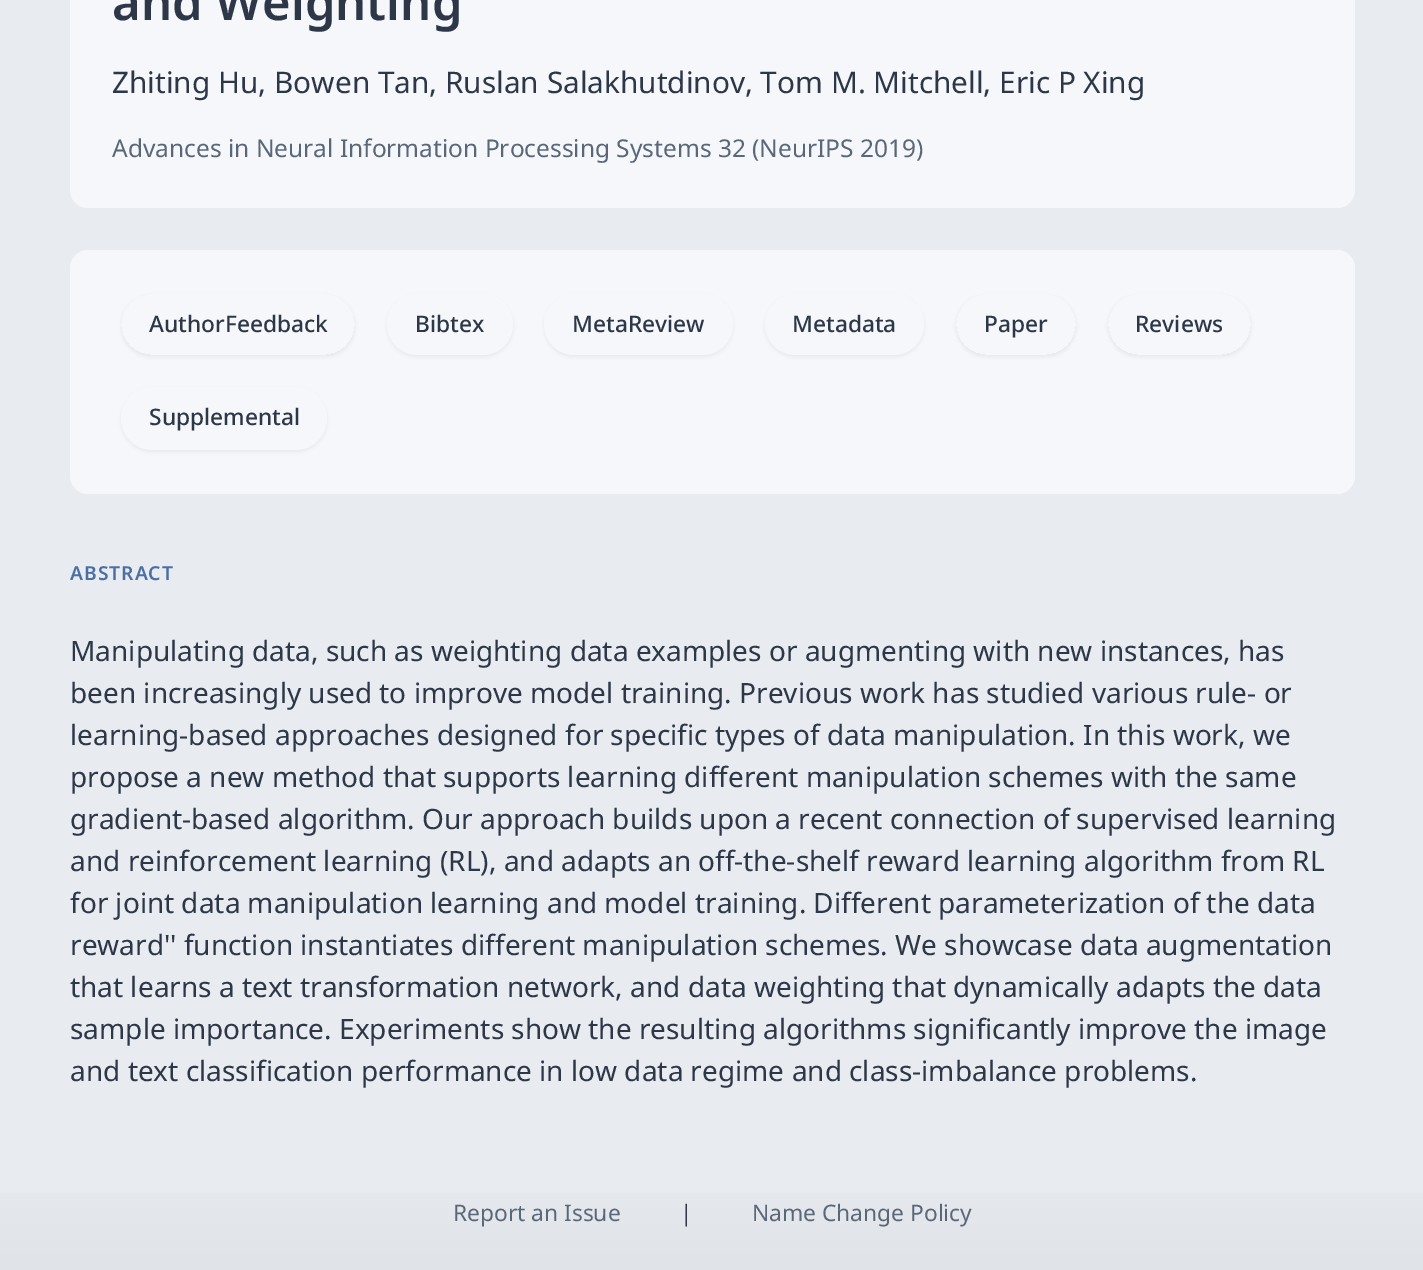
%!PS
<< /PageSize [1423 1270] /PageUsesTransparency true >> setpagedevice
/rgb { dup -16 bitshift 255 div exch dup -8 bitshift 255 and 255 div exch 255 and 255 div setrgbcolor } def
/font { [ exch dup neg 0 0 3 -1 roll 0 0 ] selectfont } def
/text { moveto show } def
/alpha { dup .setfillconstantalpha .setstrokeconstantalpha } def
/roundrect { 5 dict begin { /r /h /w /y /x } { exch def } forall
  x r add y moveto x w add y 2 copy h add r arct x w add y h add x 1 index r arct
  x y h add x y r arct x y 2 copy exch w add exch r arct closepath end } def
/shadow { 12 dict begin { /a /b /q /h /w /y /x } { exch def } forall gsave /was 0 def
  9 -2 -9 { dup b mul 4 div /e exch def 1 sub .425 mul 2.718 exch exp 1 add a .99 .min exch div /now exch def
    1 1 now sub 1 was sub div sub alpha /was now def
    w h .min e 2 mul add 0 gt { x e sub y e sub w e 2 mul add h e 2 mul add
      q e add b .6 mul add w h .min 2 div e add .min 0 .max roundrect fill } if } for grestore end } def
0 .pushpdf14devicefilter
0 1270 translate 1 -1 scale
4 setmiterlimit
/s1 { /NotoSans-SemiBold 49 font 16#2D3748 rgb } def
/s2 { /NotoSans-Regular 29.75 font 16#2D3748 rgb } def
/s3 { /NotoSans-Regular 24.5 font 16#5A6778 rgb } def
/s4 { /NotoSans-Medium 22.75 font 16#2D3748 rgb } def
/s5 { /NotoSans-Regular 28 font 16#2D3748 rgb } def
/s6 { /NotoSans-Regular 22.75 font 16#5A6778 rgb } def
/s7 { /NotoSans-Regular 22.75 font 16#2D3748 rgb } def
16#E8EBF0 rgb
0 0 1423 1270 rectfill
16#F5F7FA rgb
70 -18 1285 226 18 roundrect fill
s1
(and Weighting) 112 20 text
s2
(Zhiting Hu, Bowen Tan, Ruslan Salakhutdinov, Tom M. Mitchell, Eric P Xing) 112 93 text
s3
(Advances in Neural Information Processing Systems 32 \(NeurIPS 2019\)) 112 157 text
16#F5F7FA rgb
70 250 1285 244 18 roundrect fill
gsave
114 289 moveto 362 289 lineto 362 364 lineto 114 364 lineto closepath 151.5 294 moveto 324.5 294 lineto 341.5 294 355 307.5 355 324.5 curveto 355 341.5 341.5 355 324.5 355 curveto 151.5 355 lineto 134.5 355 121 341.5 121 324.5 curveto 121 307.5 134.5 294 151.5 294 curveto closepath eoclip newpath
16#000000 rgb
121 296 234 61 30.5 2 0.06 shadow
grestore
s4
(AuthorFeedback) 149 332 text
16#000000 rgb
387 296 126 61 30.5 2 0.06 shadow
16#F5F7FA rgb
387 294 126 61 30.5 roundrect fill
s4
(Bibtex) 415 332 text
16#000000 rgb
544 296 189 61 30.5 2 0.06 shadow
16#F5F7FA rgb
544 294 189 61 30.5 roundrect fill
s4
(MetaReview) 572 332 text
16#000000 rgb
765 296 159 61 30.5 2 0.06 shadow
16#F5F7FA rgb
765 294 159 61 30.5 roundrect fill
s4
(Metadata) 792 332 text
gsave
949 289 moveto 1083 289 lineto 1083 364 lineto 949 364 lineto closepath 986.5 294 moveto 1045.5 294 lineto 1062.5 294 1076 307.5 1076 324.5 curveto 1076 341.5 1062.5 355 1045.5 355 curveto 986.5 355 lineto 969.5 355 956 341.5 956 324.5 curveto 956 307.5 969.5 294 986.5 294 curveto closepath eoclip newpath
16#000000 rgb
956 296 120 61 30.5 2 0.06 shadow
grestore
(Paper) 984 332 text
gsave
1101 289 moveto 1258 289 lineto 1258 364 lineto 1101 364 lineto closepath 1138.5 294 moveto 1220.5 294 lineto 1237.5 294 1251 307.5 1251 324.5 curveto 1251 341.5 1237.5 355 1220.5 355 curveto 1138.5 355 lineto 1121.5 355 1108 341.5 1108 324.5 curveto 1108 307.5 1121.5 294 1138.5 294 curveto closepath eoclip newpath
16#000000 rgb
1108 296 143 61 30.5 2 0.06 shadow
grestore
(Reviews) 1135 332 text
16#000000 rgb
121 389 206 63 31.5 2 0.06 shadow
16#F5F7FA rgb
121 387 206 63 31.5 roundrect fill
s4
(Supplemental) 149 425 text
/NotoSans-SemiBold 19.25 font
16#4A6FA5 rgb
70 580 moveto 1 0 (ABSTRACT) ashow
s5
(Manipulating data, such as weighting data examples or augmenting with new instances, has) 70 661 text
(been increasingly used to improve model training. Previous work has studied various rule- or) 70 703 text
(learning-based approaches designed for specific types of data manipulation. In this work, we) 70 745 text
(propose a new method that supports learning different manipulation schemes with the same) 70 787 text
(gradient-based algorithm. Our approach builds upon a recent connection of supervised learning) 70 829 text
(and reinforcement learning \(RL\), and adapts an off-the-shelf reward learning algorithm from RL) 70 871 text
(for joint data manipulation learning and model training. Different parameterization of the data) 70 913 text
(reward'' function instantiates different manipulation schemes. We showcase data augmentation) 70 955 text
(that learns a text transformation network, and data weighting that dynamically adapts the data) 70 997 text
(sample importance. Experiments show the resulting algorithms significantly improve the image) 70 1039 text
(and text classification performance in low data regime and class-imbalance problems.) 70 1081 text
gsave 0 1193 moveto 1423 1193 lineto 1423 1270 lineto 0 1270 lineto closepath clip newpath
<< /ShadingType 2 /ColorSpace /DeviceRGB /Coords [712 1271 712 1157] /Extend [true true] /Function << /FunctionType 2 /Domain [0 1] /C0 [0.878 0.89 0.91] /C1 [0.91 0.922 0.941] /N 1 >> >> shfill grestore
s6
(Report an Issue) 453 1221 text
s7
(|) 680 1221 text
s6
(Name Change Policy) 752 1221 text
.poppdf14devicefilter showpage
